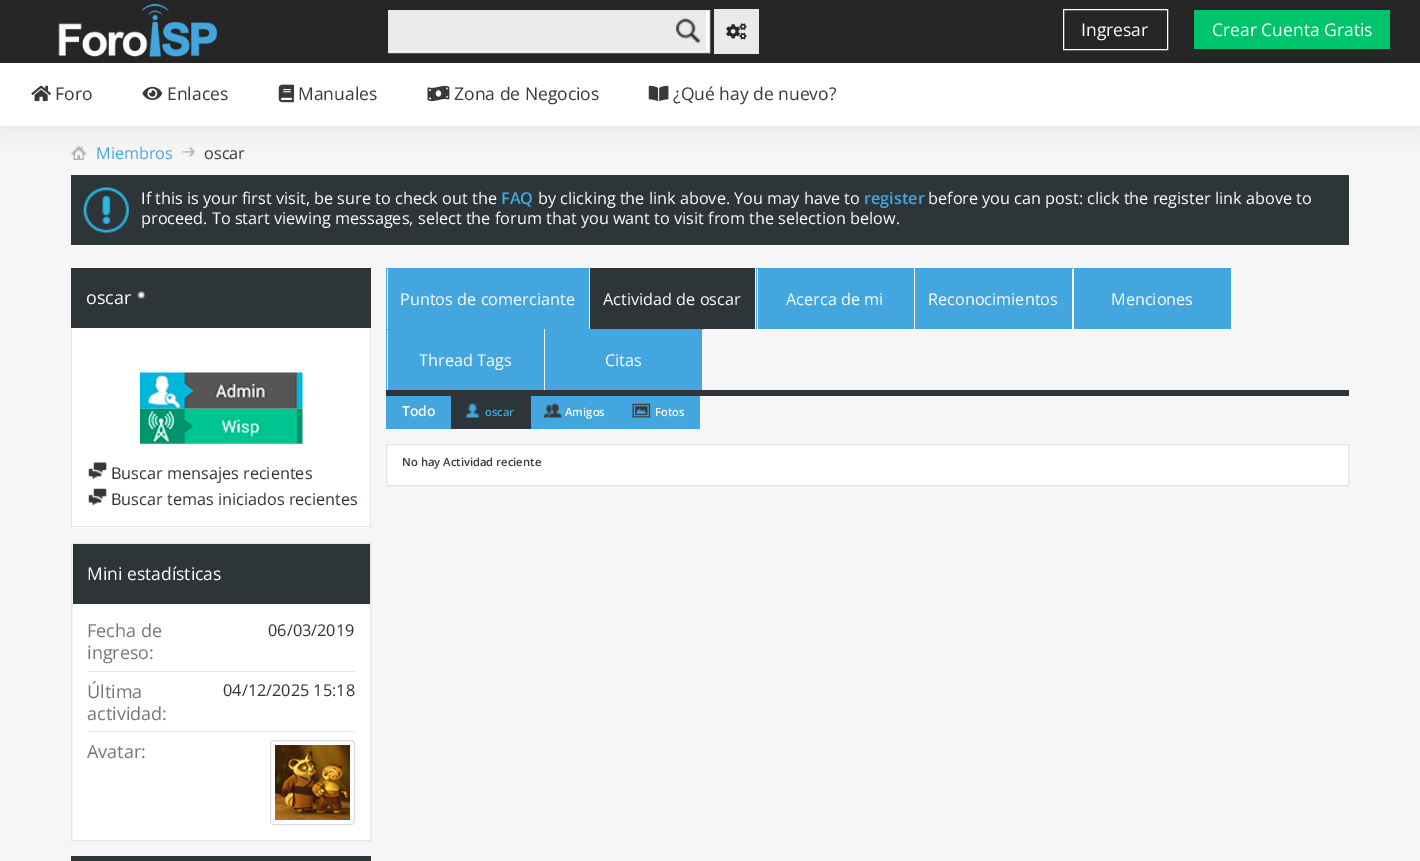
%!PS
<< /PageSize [1420 861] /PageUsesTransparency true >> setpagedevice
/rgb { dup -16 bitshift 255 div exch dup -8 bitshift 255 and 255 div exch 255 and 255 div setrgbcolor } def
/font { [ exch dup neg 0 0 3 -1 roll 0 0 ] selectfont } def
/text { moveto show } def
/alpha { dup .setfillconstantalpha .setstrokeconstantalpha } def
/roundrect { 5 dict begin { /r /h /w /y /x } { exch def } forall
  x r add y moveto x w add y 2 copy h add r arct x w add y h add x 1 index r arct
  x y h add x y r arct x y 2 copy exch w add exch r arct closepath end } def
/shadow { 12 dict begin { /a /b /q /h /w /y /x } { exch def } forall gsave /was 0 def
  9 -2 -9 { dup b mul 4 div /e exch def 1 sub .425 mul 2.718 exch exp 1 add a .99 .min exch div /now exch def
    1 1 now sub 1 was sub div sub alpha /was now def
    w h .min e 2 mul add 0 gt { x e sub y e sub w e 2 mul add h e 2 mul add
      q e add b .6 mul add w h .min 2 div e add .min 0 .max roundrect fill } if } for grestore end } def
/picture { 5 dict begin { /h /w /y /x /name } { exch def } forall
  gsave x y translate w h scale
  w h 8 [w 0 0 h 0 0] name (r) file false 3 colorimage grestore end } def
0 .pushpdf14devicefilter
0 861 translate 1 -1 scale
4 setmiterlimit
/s1 { /OpenSans-Regular 17.5 font 16#FFFFFF rgb } def
/s2 { /OpenSans-Regular 17.5 font 16#393939 rgb } def
/s3 { /OpenSans-Regular 16.25 font 16#43A6DF rgb } def
/s4 { /OpenSans-Regular 16.25 font 16#393939 rgb } def
/s5 { /OpenSans-Regular 16.25 font 16#FFFFFF rgb } def
/s6 { /OpenSans-SemiBold 16.25 font 16#43A6DF rgb } def
/s7 { /OpenSans-Regular 18 font 16#FFFFFF rgb } def
/s8 { /OpenSans-Regular 16.25 font 16#2E3539 rgb } def
/s9 { /OpenSans-Regular 18 font 16#777777 rgb } def
/s10 { /OpenSans-Regular 16.25 font 16#333333 rgb } def
/s11 { /OpenSans-SemiBold 14 font 16#FFFFFF rgb } def
/s12 { /OpenSans-SemiBold 11.25 font 16#43A6DF rgb } def
/s13 { /OpenSans-SemiBold 11.25 font 16#FFFFFF rgb } def
/s14 { /OpenSans-SemiBold 11.25 font 16#393939 rgb } def
16#F6F6F6 rgb
0 0 1420 861 rectfill
16#000000 rgb
1 63 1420 63 0 12.5 0.08 shadow
16#262626 rgb
0 0 1420 63 rectfill
(pic1.raw) 58 4 160 53 picture
16#FFFFFF rgb
388.5 10.5 moveto 709.5 10.5 lineto 709.5 52.5 lineto 388.5 52.5 lineto closepath gsave fill grestore
16#E4E4E4 rgb
stroke
16#EAEAEA rgb
389 11 317 40 rectfill
(pic2.raw) 676 18 25 25 picture
714 9 45 45 rectfill
(pic3.raw) 726 23 21 17 picture
16#FFFFFF rgb
1063.5 9.5 104 40 rectstroke
s1
(Ingresar) 1081 36 text
16#00C46B rgb
1194 10 196 39 rectfill
s1
(Crear Cuenta Gratis) 1212 36 text
0 63 1420 63 rectfill
(pic4.raw) 31 85 20 17 picture
s2
(Foro) 55 100 text
(pic5.raw) 142 86 21 14 picture
(Enlaces) 167 100 text
(pic6.raw) 278 84 17 19 picture
(Manuales) 298 100 text
(pic7.raw) 427 85 23 17 picture
(Zona de Negocios) 454 100 text
(pic8.raw) 648 85 21 17 picture
(¿Qué hay de nuevo?) 673 100 text
(pic9.raw) 71 146 16 14 picture
(pic10.raw) 182 147 13 10 picture
s3
(Miembros) 96 159 text
s4
(oscar) 204 159 text
16#2E3539 rgb
71 175 1278 70 rectfill
(pic11.raw) 83 187 46 46 picture
s5
(If this is your first visit, be sure to check out the) 141 204 text
s6
(FAQ) 501 204 text
s5
(by clicking the link above. You may have to) 538 204 text
s6
(register) 864 204 text
s5
(before you can post: click the register link above to) 928 204 text
(proceed. To start viewing messages, select the forum that you want to visit from the selection below.) 141 224 text
16#2E3539 rgb
71 268 300 60 rectfill
s7
(oscar) 86 304 text
(pic12.raw) 137 291 9 8 picture
72 328 298 200 rectfill
16#E4E4E4 rgb
370 328 1 200 rectfill
71 526 300 1 rectfill
71 328 1 200 rectfill
(pic13.raw) 140 372 163 37 picture
(pic14.raw) 140 408 163 36 picture
(pic15.raw) 88 462 19 17 picture
s8
(Buscar mensajes recientes) 111 479 text
(pic16.raw) 88 488 19 18 picture
(Buscar temas iniciados recientes) 111 505 text
16#E4E4E4 rgb
71.5 543.5 299 297 rectstroke
16#2E3539 rgb
73 544 297 60 rectfill
s1
(Mini estadísticas) 87 580 text
73 604 297 236 rectfill
16#E4E4E4 rgb
88 671 267 1 rectfill
s9
(Fecha de) 87 637 text
(ingreso:) 87 659 text
s10
(06/03/2019) 268 636 text
16#E4E4E4 rgb
88 731 267 1 rectfill
s9
(Última) 87 698 text
(actividad:) 87 720 text
s10
(04/12/2025 15:18) 223 696 text
s9
(Avatar:) 87 758 text
16#DADADA rgb
270.5 740.5 84 84 3.5 roundrect stroke
(pic17.raw) 275 745 75 75 picture
16#2E3539 rgb
71 856 300 5 rectfill
16#43A6DF rgb
388 269 200 60 rectfill
386 268 203 1 rectfill
588 268 1 61 rectfill
386 268 1 61 rectfill
s5
(Puntos de comerciante) 400 305 text
16#2E3539 rgb
591 269 163 60 rectfill
590 268 165 1 rectfill
754 268 1 61 rectfill
590 268 1 61 rectfill
s5
(Actividad de oscar) 603 305 text
16#43A6DF rgb
758 269 155 60 rectfill
756 268 158 1 rectfill
913 268 1 61 rectfill
756 268 1 61 rectfill
s5
(Acerca de mi) 786 305 text
16#43A6DF rgb
916 269 155 60 rectfill
915 268 158 1 rectfill
1071 268 1 61 rectfill
915 268 1 61 rectfill
s5
(Reconocimientos) 928 305 text
16#43A6DF rgb
1075 269 155 60 rectfill
1074 268 157 1 rectfill
1230 268 1 61 rectfill
1074 268 1 61 rectfill
s5
(Menciones) 1111 305 text
16#43A6DF rgb
388 330 155 60 rectfill
386 329 158 1 rectfill
543 329 1 61 rectfill
386 329 1 61 rectfill
s5
(Thread Tags) 419 366 text
16#43A6DF rgb
546 330 155 60 rectfill
545 329 158 1 rectfill
701 329 1 61 rectfill
545 329 1 61 rectfill
s5
(Citas) 605 366 text
16#2E3539 rgb
386 390 963 6 rectfill
16#43A6DF rgb
386 396 65 33 rectfill
s11
(Todo) 402 416 text
16#2E3539 rgb
451 396 80 33 rectfill
(pic18.raw) 466 403 13 15 picture
s12
(oscar) 485 416 text
531 396 169 33 rectfill
(pic19.raw) 543 403 19 15 picture
s13
(Amigos) 565 416 text
(pic20.raw) 632 403 19 15 picture
(Fotos) 655 416 text
386.5 444.5 moveto 1348.5 444.5 lineto 1348.5 485.5 lineto 386.5 485.5 lineto closepath gsave fill grestore
16#E4E4E4 rgb
stroke
s14
(No hay Actividad reciente) 402 466 text
.poppdf14devicefilter showpage
